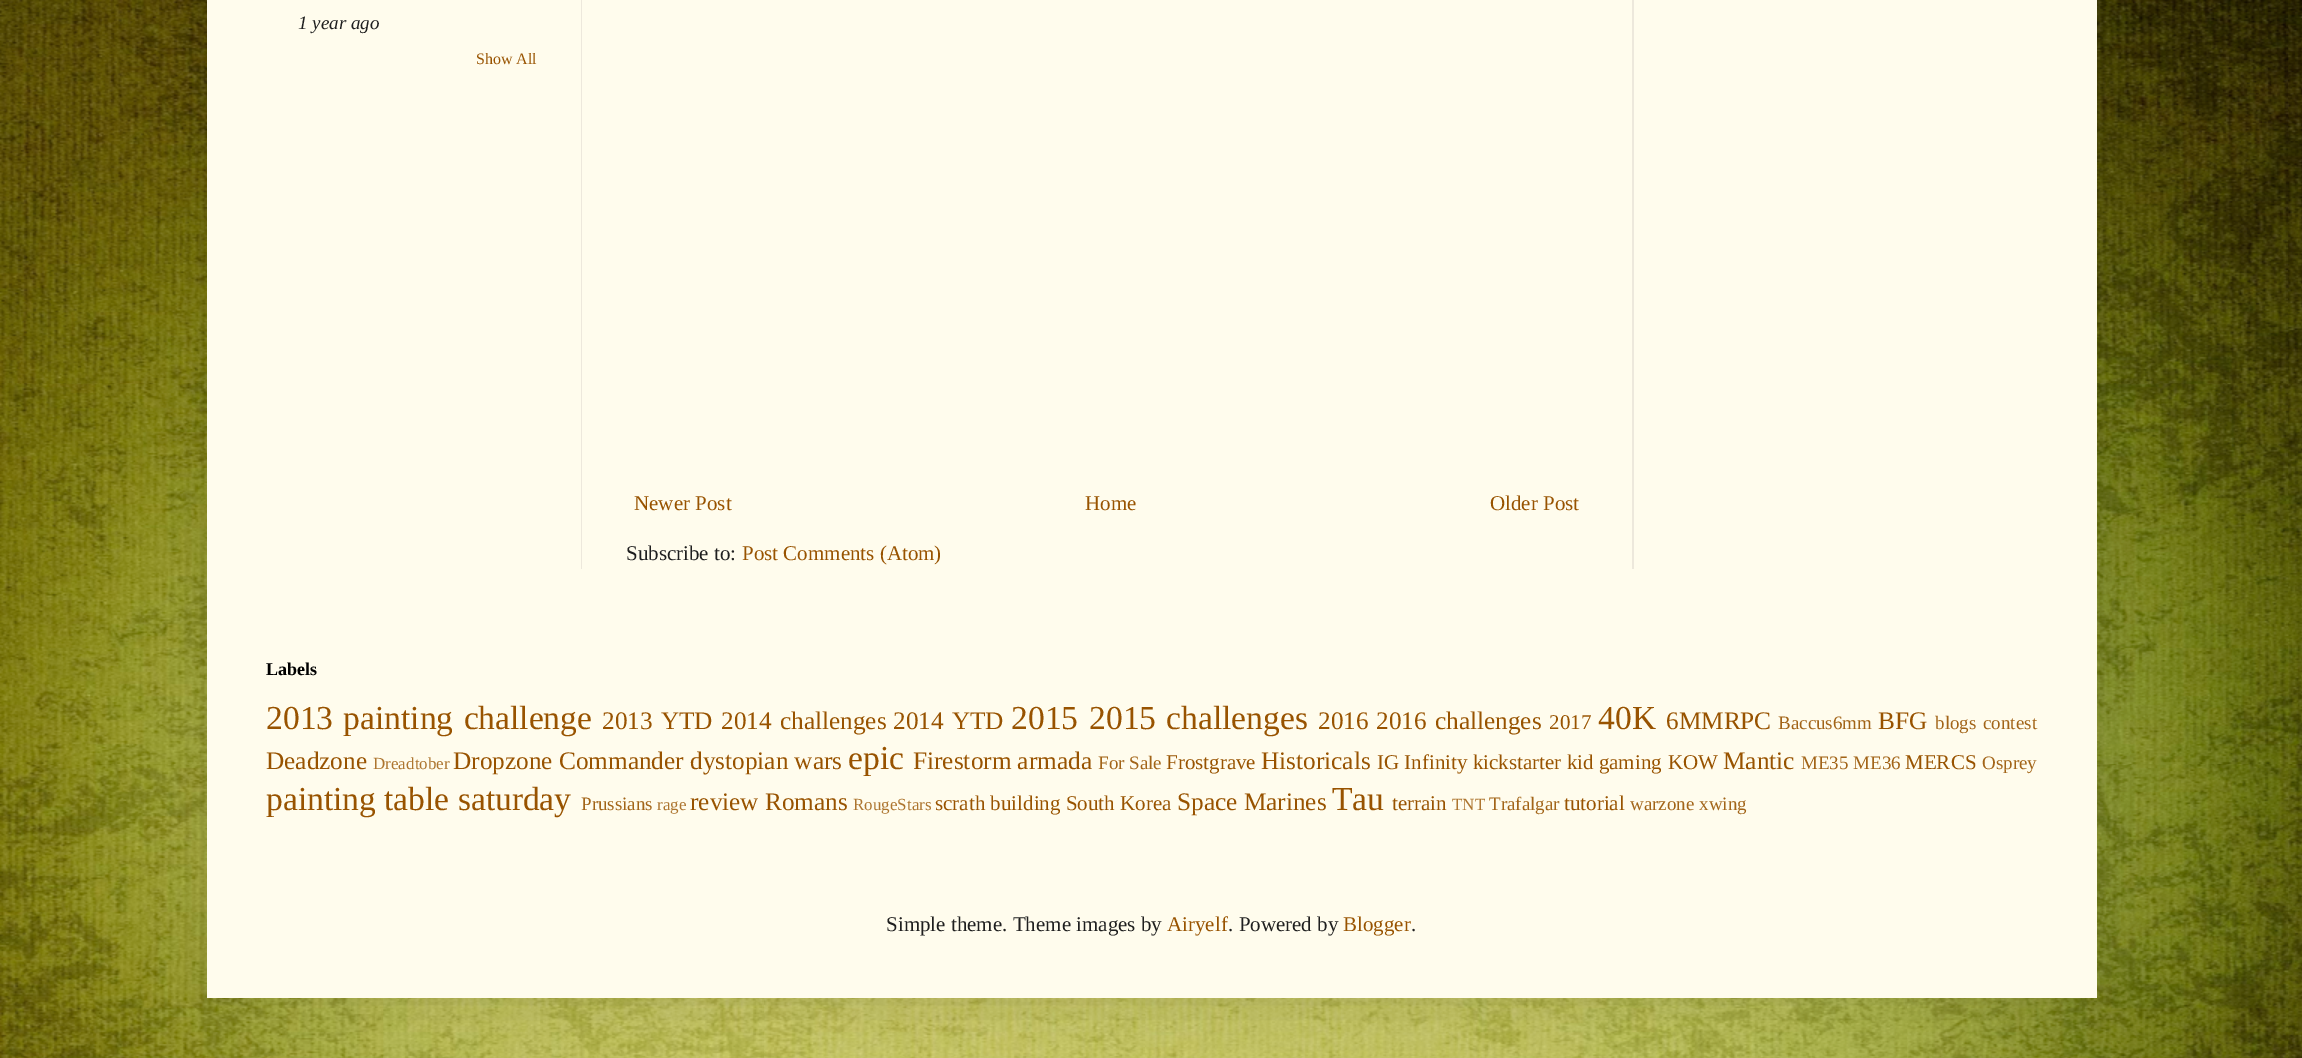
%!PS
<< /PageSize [2302 1058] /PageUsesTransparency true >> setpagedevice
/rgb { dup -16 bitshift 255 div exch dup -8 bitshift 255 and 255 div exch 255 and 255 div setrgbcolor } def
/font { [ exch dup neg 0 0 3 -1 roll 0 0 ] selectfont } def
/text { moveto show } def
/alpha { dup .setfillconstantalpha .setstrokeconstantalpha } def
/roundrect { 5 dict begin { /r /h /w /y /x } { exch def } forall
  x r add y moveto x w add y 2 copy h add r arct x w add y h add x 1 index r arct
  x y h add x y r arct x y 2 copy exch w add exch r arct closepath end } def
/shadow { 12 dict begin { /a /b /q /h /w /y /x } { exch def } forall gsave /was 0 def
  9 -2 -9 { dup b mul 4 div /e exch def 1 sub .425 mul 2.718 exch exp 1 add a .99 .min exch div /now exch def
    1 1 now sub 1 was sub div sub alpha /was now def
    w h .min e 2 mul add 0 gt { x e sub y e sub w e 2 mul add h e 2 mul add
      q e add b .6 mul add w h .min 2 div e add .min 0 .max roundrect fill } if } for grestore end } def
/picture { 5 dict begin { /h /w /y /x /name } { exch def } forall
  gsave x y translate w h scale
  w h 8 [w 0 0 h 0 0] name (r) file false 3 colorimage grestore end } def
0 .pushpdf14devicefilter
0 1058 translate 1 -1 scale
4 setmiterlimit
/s1 { /LiberationSerif-Italic 19 font 16#1F1F1F rgb } def
/s2 { /LiberationSerif-Regular 16 font 16#985300 rgb } def
/s3 { /LiberationSerif-Regular 21 font 16#985300 rgb } def
/s4 { /LiberationSerif-Regular 21 font 16#1F1F1F rgb } def
/s5 { /LiberationSerif-Bold 18 font 16#000000 rgb } def
/s6 { /LiberationSerif-Regular 33.5 font 16#985300 rgb } def
/s7 { /LiberationSerif-Regular 25.25 font 16#985300 rgb } def
/s8 { /LiberationSerif-Regular 19 font 16#A26418 rgb } def
/s9 { /LiberationSerif-Regular 17 font 16#AD752F rgb } def
16#FFFFFF rgb
0 0 2302 1058 rectfill
(pic1.raw) 0 0 2302 1058 picture
16#000000 rgb
207 -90 1890 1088 0 30 0.15 shadow
16#FFFCED rgb
207 0 1890 998 rectfill
16#EDE8DC rgb
581 0 1 569 rectfill
1632 0 2 569 rectfill
s1
(1 year ago) 298 29 text
s2
(Show All) 476 64 text
s3
(Newer Post) 634 510 text
(Home) 1085 510 text
(Older Post) 1490 510 text
s4
(Subscribe to:) 626 560 text
s3
(Post Comments \(Atom\)) 742 560 text
s5
(Labels) 266 675 text
/LiberationSerif-Regular 33.5 font
16#985300 rgb
266 729 moveto 2 0 32 (2013 painting challenge) widthshow
/LiberationSerif-Regular 25.25 font
602 729 moveto 2 0 32 (2013 YTD) widthshow
721 729 moveto 2 0 32 (2014 challenges) widthshow
893 729 moveto 2 0 32 (2014 YTD) widthshow
s6
(2015) 1011 729 text
1089 729 moveto 2 0 32 (2015 challenges) widthshow
s7
(2016) 1318 729 text
1376 729 moveto 2 0 32 (2016 challenges) widthshow
s3
(2017) 1549 729 text
s6
(40K) 1598 729 text
s7
(6MMRPC) 1666 729 text
s8
(Baccus6mm) 1778 729 text
s7
(BFG) 1878 729 text
s8
(blogs) 1935 729 text
(contest) 1983 729 text
s7
(Deadzone) 266 769 text
s9
(Dreadtober) 373 769 text
s7
(Dropzone Commander dystopian wars) 453 769 text
s6
(epic) 848 769 text
s7
(Firestorm armada) 913 769 text
s8
(For Sale) 1098 769 text
s3
(Frostgrave) 1166 769 text
s7
(Historicals) 1261 769 text
s3
(IG Infinity kickstarter kid gaming) 1377 769 text
(KOW) 1668 769 text
s7
(Mantic) 1723 769 text
s8
(ME35 ME36) 1801 769 text
s3
(MERCS) 1905 769 text
s8
(Osprey) 1982 769 text
s6
(painting table saturday) 266 810 text
s8
(Prussians) 581 810 text
s9
(rage) 657 810 text
s7
(review Romans) 690 810 text
s9
(RougeStars) 853 810 text
s3
(scrath building South Korea) 935 810 text
s7
(Space Marines) 1177 810 text
s6
(Tau) 1332 810 text
s3
(terrain) 1392 810 text
s9
(TNT) 1452 810 text
s8
(Trafalgar) 1489 810 text
s3
(tutorial) 1564 810 text
s8
(warzone xwing) 1630 810 text
s4
(Simple theme. Theme images by) 886 931 text
s3
(Airyelf) 1167 931 text
s4
(. Powered by) 1228 931 text
s3
(Blogger) 1343 931 text
s4
(.) 1411 931 text
.poppdf14devicefilter showpage
